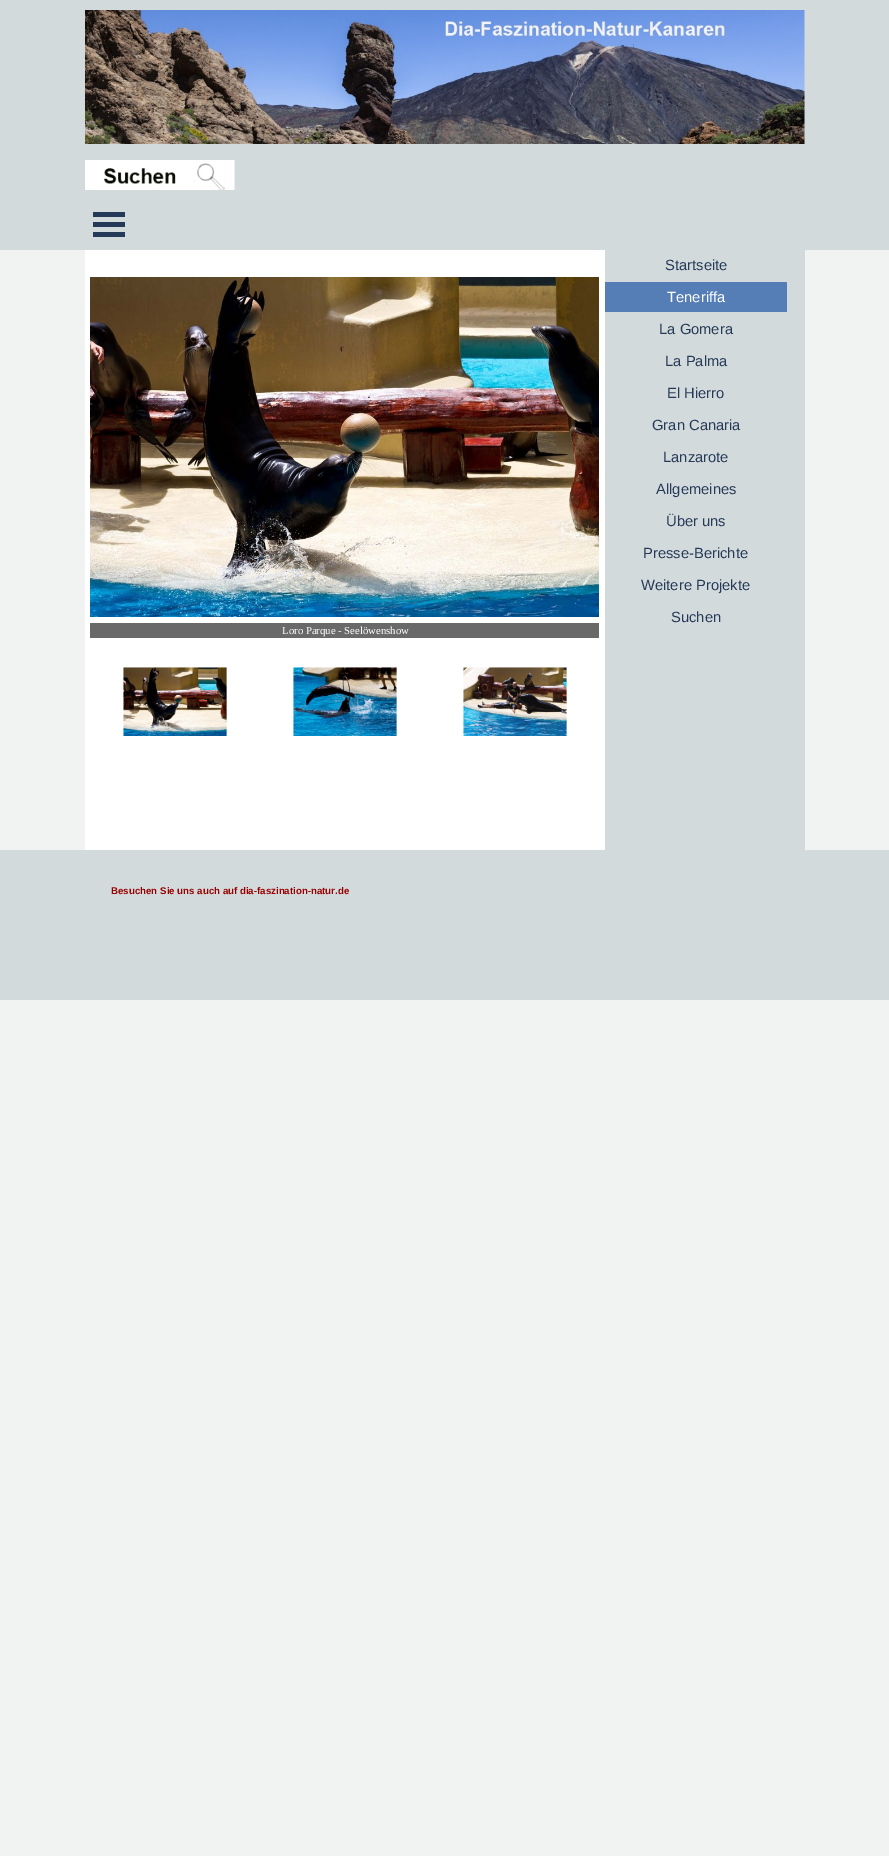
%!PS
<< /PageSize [889 1856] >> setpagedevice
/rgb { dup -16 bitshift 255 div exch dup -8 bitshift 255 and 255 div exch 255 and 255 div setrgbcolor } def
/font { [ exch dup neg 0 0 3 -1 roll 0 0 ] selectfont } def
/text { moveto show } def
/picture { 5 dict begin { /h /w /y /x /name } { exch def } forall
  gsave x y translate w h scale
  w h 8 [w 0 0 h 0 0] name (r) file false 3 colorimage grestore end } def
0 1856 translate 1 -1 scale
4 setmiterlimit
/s1 { /LiberationSans-Regular 14.75 font 16#253A58 rgb } def
/s2 { /LiberationSans-Regular 14.75 font 16#FFFFFF rgb } def
/s3 { /LiberationSerif-Regular 10.75 font 16#FFFFFF rgb } def
/s4 { /LiberationSans-Bold 9.7 font 16#980000 rgb } def
16#F1F3F3 rgb
0 0 889 1856 rectfill
16#D3DADC rgb
0 0 889 250 rectfill
(pic1.raw) 85 10 720 134 picture
(pic2.raw) 85 160 150 30 picture
16#253A58 rgb
93 212 32 5 rectfill
93 222 32 5 rectfill
93 232 32 5 rectfill
16#FFFFFF rgb
85 250 520 600 rectfill
16#D3DADC rgb
605 250 200 600 rectfill
s1
(Startseite) 665 270 text
16#567EB6 rgb
605 282 182 30 rectfill
s2
(Teneriffa) 667 302 text
s1
(La Gomera) 659 334 text
(La Palma) 665 366 text
(El Hierro) 667 398 text
(Gran Canaria) 652 430 text
(Lanzarote) 663 462 text
(Allgemeines) 656 494 text
(Über uns) 666 526 text
(Presse-Berichte) 643 558 text
(Weitere Projekte) 641 590 text
(Suchen) 671 622 text
(pic3.raw) 90 277 509 340 picture
16#696969 rgb
90 623 509 15 rectfill
s3
(Loro Parque - Seelöwenshow) 282 634 text
(pic4.raw) 123 667 104 69 picture
(pic5.raw) 293 667 104 69 picture
(pic6.raw) 463 667 104 69 picture
16#D3DADC rgb
0 850 889 150 rectfill
s4
(Besuchen Sie uns auch auf dia-faszination-natur.de) 111 894 text
showpage
